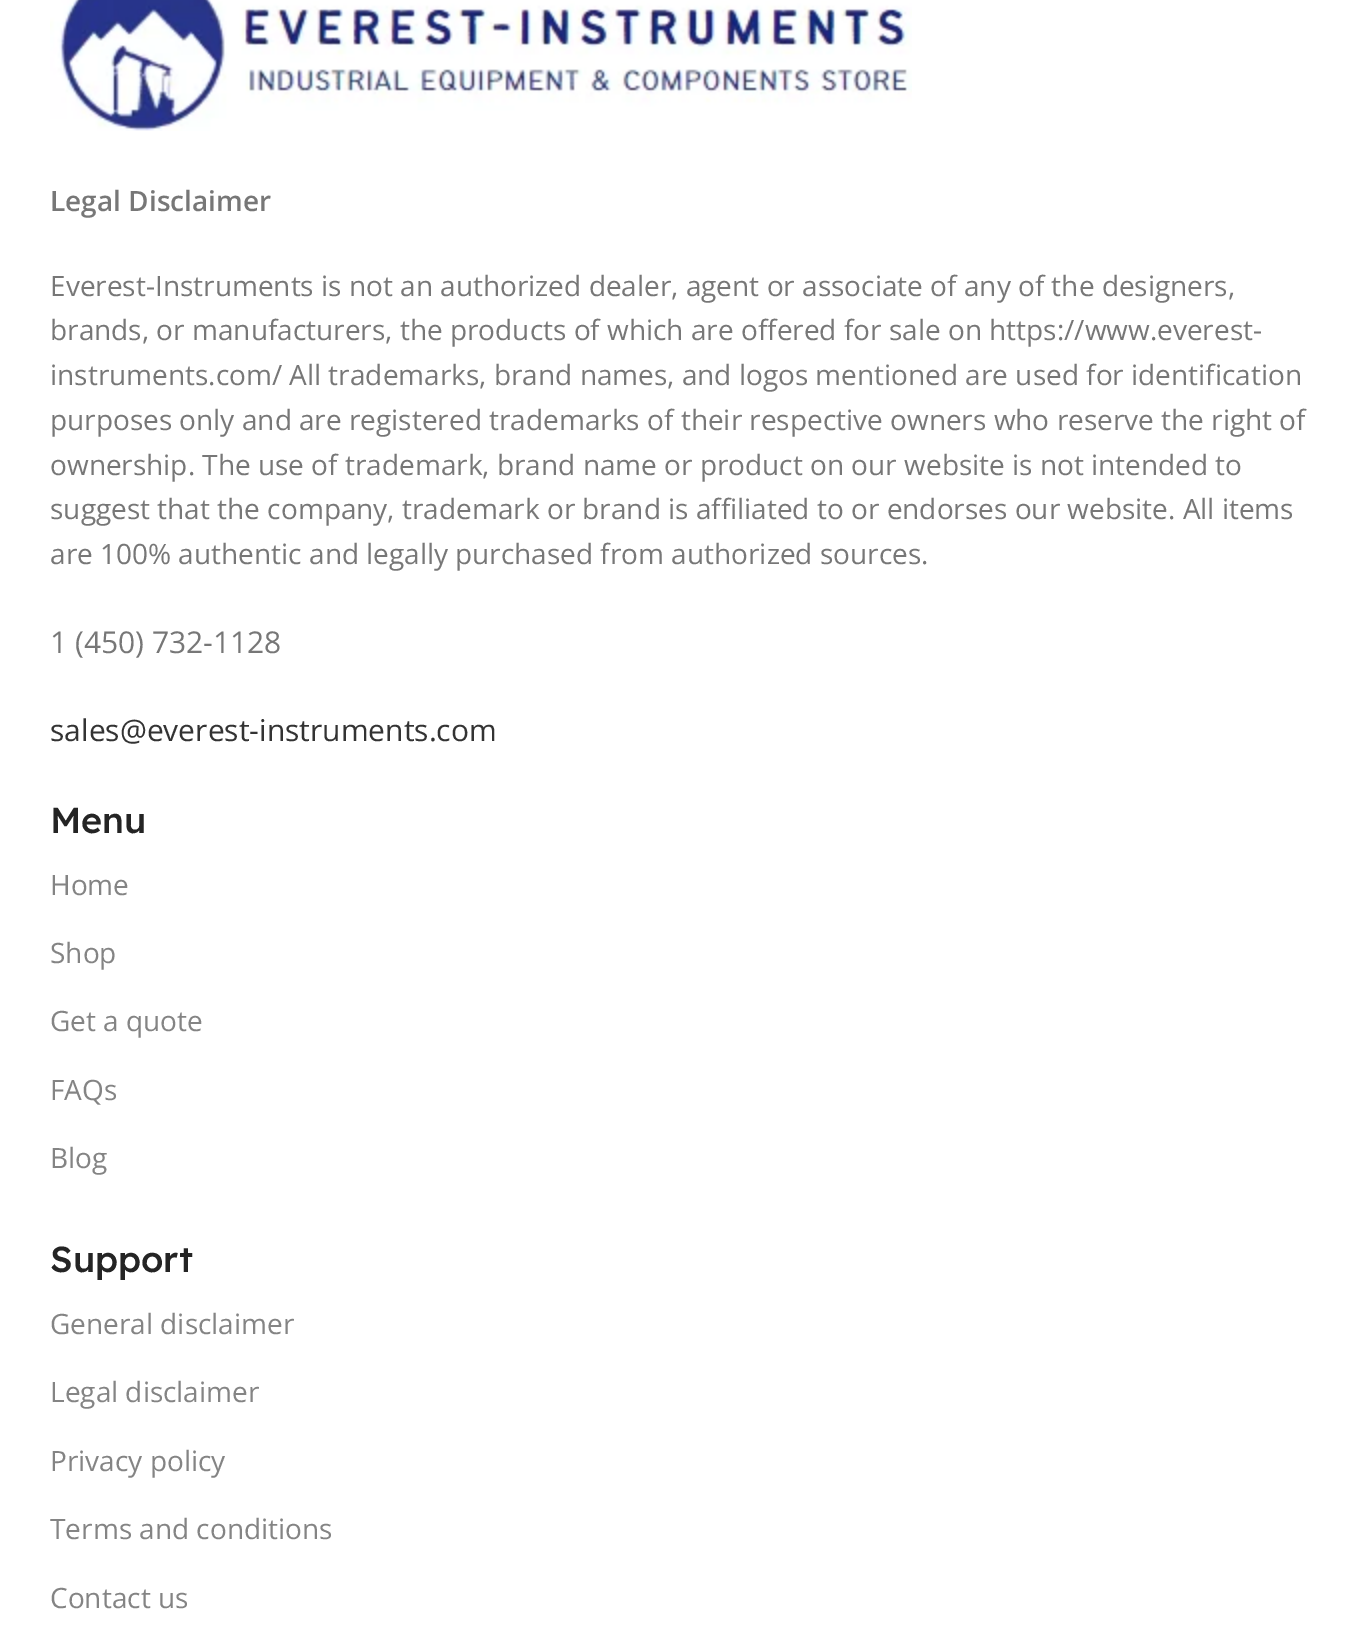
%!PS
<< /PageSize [1358 1649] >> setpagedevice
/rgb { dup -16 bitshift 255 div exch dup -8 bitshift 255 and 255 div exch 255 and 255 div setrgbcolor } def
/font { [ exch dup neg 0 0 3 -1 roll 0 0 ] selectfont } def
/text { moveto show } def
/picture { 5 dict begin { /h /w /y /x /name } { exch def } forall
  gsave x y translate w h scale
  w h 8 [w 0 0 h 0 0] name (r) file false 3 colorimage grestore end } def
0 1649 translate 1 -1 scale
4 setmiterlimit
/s1 { /OpenSans-SemiBold 28 font 16#777777 rgb } def
/s2 { /OpenSans-Regular 28 font 16#777777 rgb } def
/s3 { /OpenSans-Regular 30 font 16#777777 rgb } def
/s4 { /OpenSans-Regular 30 font 16#333333 rgb } def
/s5 { /LexendDeca-Medium 36 font 16#242424 rgb } def
/s6 { /OpenSans-Regular 28 font 16#848484 rgb } def
16#FFFFFF rgb
0 0 1358 1649 rectfill
(pic1.raw) 50 0 862 131 picture
s1
(Legal Disclaimer) 50 211 text
s2
(Everest-Instruments is not an authorized dealer, agent or associate of any of the designers,) 50 296 text
(brands, or manufacturers, the products of which are offered for sale on https://www.everest-) 50 340 text
(instruments.com/ All trademarks, brand names, and logos mentioned are used for identification) 50 385 text
(purposes only and are registered trademarks of their respective owners who reserve the right of) 50 430 text
(ownership. The use of trademark, brand name or product on our website is not intended to) 50 475 text
(suggest that the company, trademark or brand is affiliated to or endorses our website. All items) 50 519 text
(are 100% authentic and legally purchased from authorized sources.) 50 564 text
s3
(1 \(450\) 732-1128) 50 653 text
s4
(sales@everest-instruments.com) 50 741 text
s5
(Menu) 50 833 text
s6
(Home) 50 895 text
(Shop) 50 963 text
(Get a quote) 50 1031 text
(FAQs) 50 1100 text
(Blog) 50 1168 text
s5
(Support) 50 1272 text
s6
(General disclaimer) 50 1334 text
(Legal disclaimer) 50 1402 text
(Privacy policy) 50 1471 text
(Terms and conditions) 50 1539 text
(Contact us) 50 1608 text
showpage
